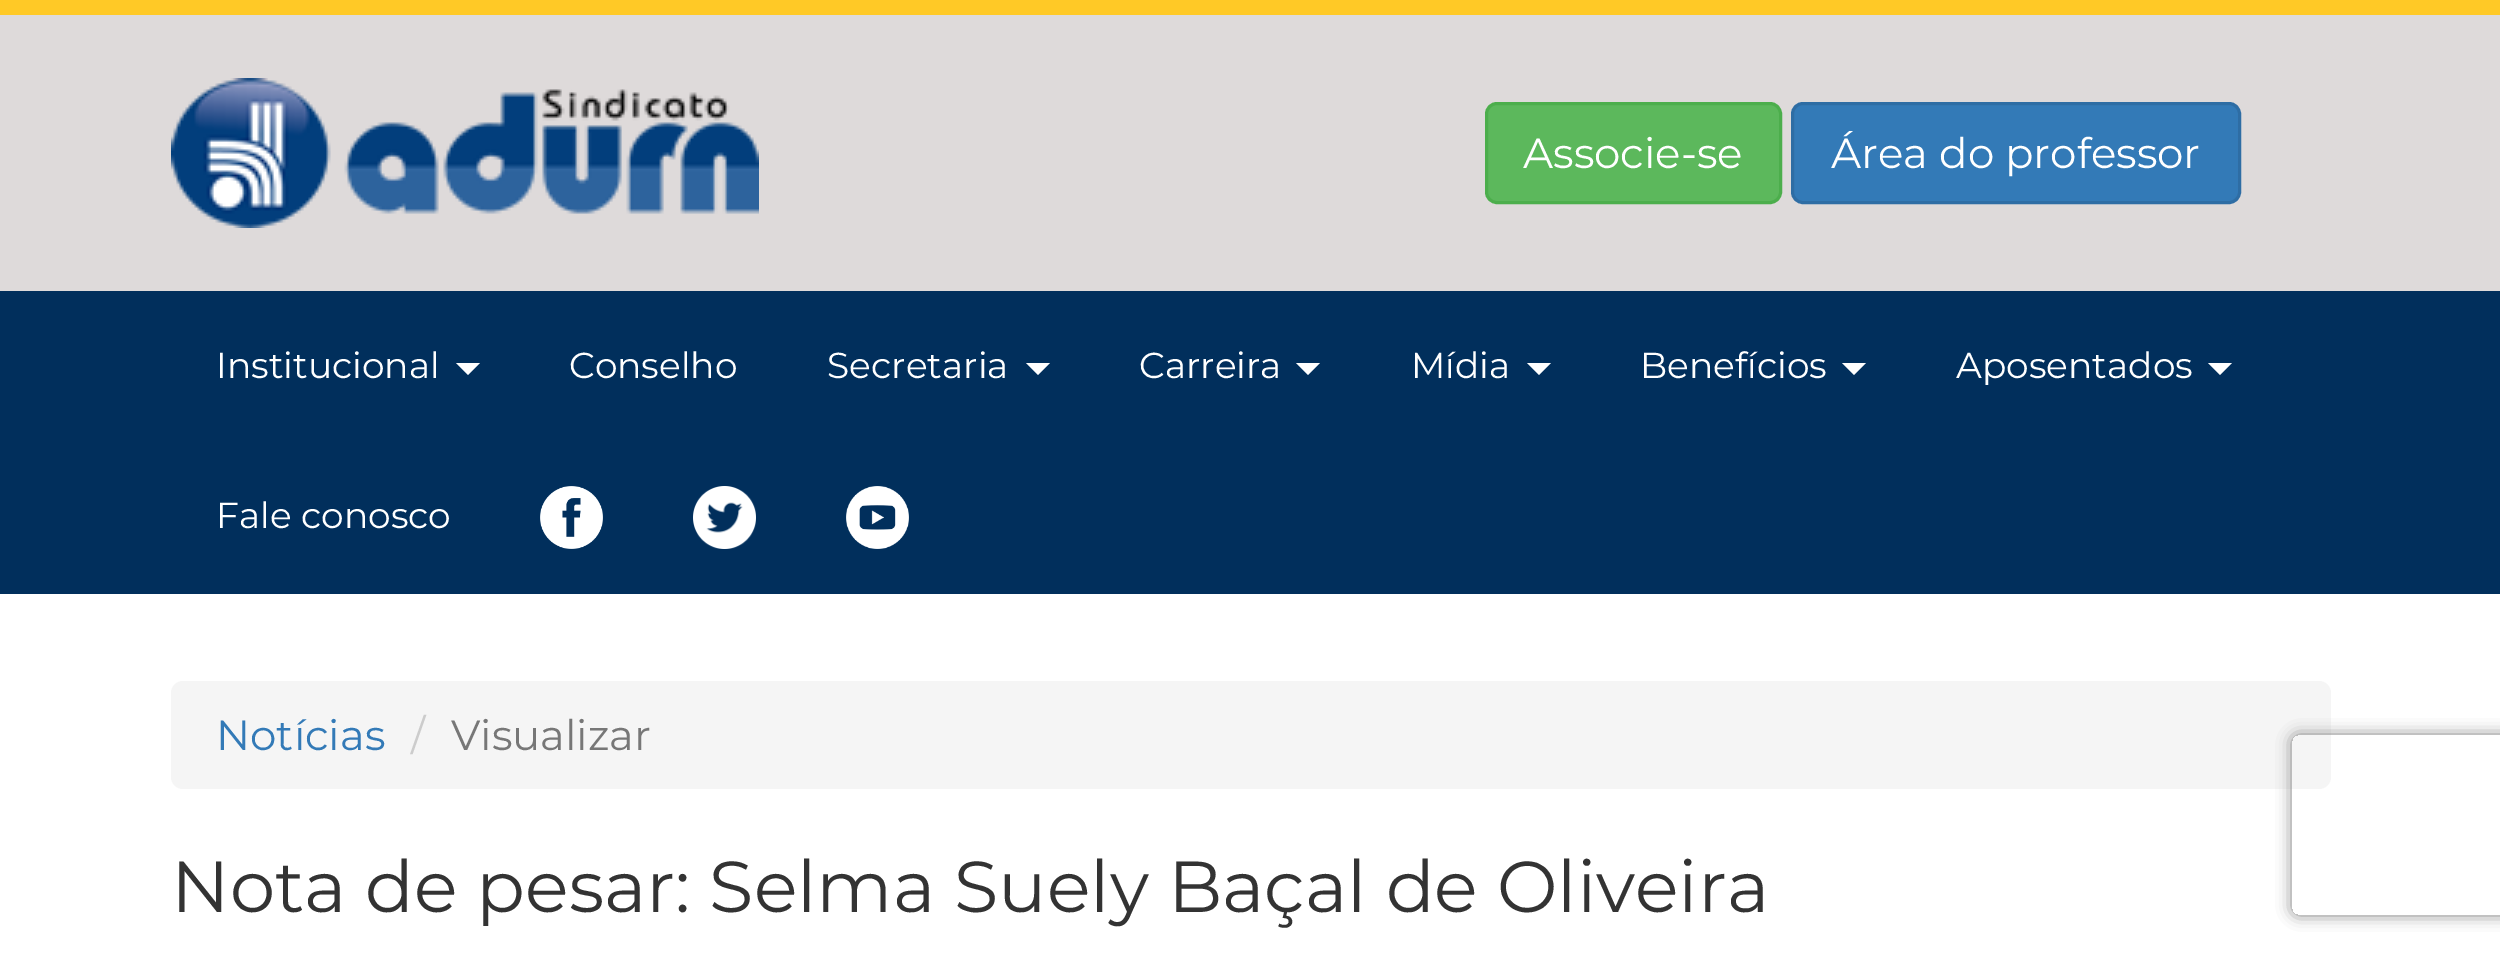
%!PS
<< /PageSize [2500 957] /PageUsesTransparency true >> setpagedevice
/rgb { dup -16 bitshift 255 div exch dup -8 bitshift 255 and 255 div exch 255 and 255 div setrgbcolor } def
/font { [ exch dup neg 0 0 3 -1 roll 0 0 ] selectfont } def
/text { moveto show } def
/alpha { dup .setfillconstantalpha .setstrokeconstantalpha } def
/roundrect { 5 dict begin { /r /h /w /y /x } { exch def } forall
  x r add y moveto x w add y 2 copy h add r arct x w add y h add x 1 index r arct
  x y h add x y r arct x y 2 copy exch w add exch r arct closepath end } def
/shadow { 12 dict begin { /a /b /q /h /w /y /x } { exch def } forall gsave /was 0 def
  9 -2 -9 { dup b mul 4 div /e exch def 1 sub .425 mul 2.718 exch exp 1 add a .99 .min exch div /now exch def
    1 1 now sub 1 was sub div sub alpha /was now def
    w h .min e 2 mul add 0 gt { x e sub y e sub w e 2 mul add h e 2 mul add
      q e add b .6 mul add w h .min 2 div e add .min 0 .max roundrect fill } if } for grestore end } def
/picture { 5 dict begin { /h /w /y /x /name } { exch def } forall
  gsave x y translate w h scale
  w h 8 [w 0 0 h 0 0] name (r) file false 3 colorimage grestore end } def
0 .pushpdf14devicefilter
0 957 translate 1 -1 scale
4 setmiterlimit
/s1 { /Montserrat-Thin 42 font 16#FFFFFF rgb } def
/s2 { /Montserrat-Thin 36 font 16#FFFFFF rgb } def
/s3 { /Montserrat-Thin 42 font 16#337AB7 rgb } def
/s4 { /Montserrat-Thin 42 font 16#CCCCCC rgb } def
/s5 { /Montserrat-Thin 42 font 16#777777 rgb } def
/s6 { /Montserrat-Thin 72 font 16#333333 rgb } def
16#FFFFFF rgb
0 0 2500 957 rectfill
16#DEDADA rgb
0 15 2500 276 rectfill
16#FFC926 rgb
0 0 2500 15 rectfill
(pic1.raw) 171 78 588 150 picture
16#5CB85C rgb
1486.5 103.5 294 99 10.5 roundrect gsave fill grestore
16#4CAE4C rgb
3 setlinewidth
stroke
s1
(Associe-se) 1523 168 text
16#337AB7 rgb
1792.5 103.5 447 99 10.5 roundrect gsave fill grestore
16#2E6DA4 rgb
stroke
s1
(Área do professor) 1831 168 text
16#012F5C rgb
0 291 2500 303 rectfill
s2
(Institucional) 216 378 text
456 363 moveto 480 363 lineto 468 375 lineto closepath fill
(Conselho) 569 378 text
(Secretaria) 827 378 text
1026 363 moveto 1050 363 lineto 1038 375 lineto closepath fill
(Carreira) 1139 378 text
1296 363 moveto 1320 363 lineto 1308 375 lineto closepath fill
(Mídia) 1411 378 text
1527 363 moveto 1551 363 lineto 1539 375 lineto closepath fill
(Benefícios) 1640 378 text
1842 363 moveto 1866 363 lineto 1854 375 lineto closepath fill
(Aposentados) 1956 378 text
2208 363 moveto 2232 363 lineto 2220 375 lineto closepath fill
(Fale conosco) 216 528 text
(pic2.raw) 540 486 63 63 picture
(pic3.raw) 693 486 63 63 picture
(pic4.raw) 846 486 63 63 picture
16#F5F5F5 rgb
171 681 2160 108 12 roundrect fill
s3
(Notícias) 216 750 text
s4
(/) 411 750 text
s5
(Visualizar) 451 750 text
s6
(Nota de pesar: Selma Suely Baçal de Oliveira) 171 912 text
gsave
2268 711 moveto 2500 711 lineto 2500 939 lineto 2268 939 lineto closepath 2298 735 moveto 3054 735 lineto 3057.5 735 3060 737.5 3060 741 curveto 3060 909 lineto 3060 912.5 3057.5 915 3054 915 curveto 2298 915 lineto 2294.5 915 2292 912.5 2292 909 curveto 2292 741 lineto 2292 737.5 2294.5 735 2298 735 curveto closepath eoclip newpath
16#808080 rgb
2292 735 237 180 6 7.5 1 shadow
grestore
.poppdf14devicefilter showpage
